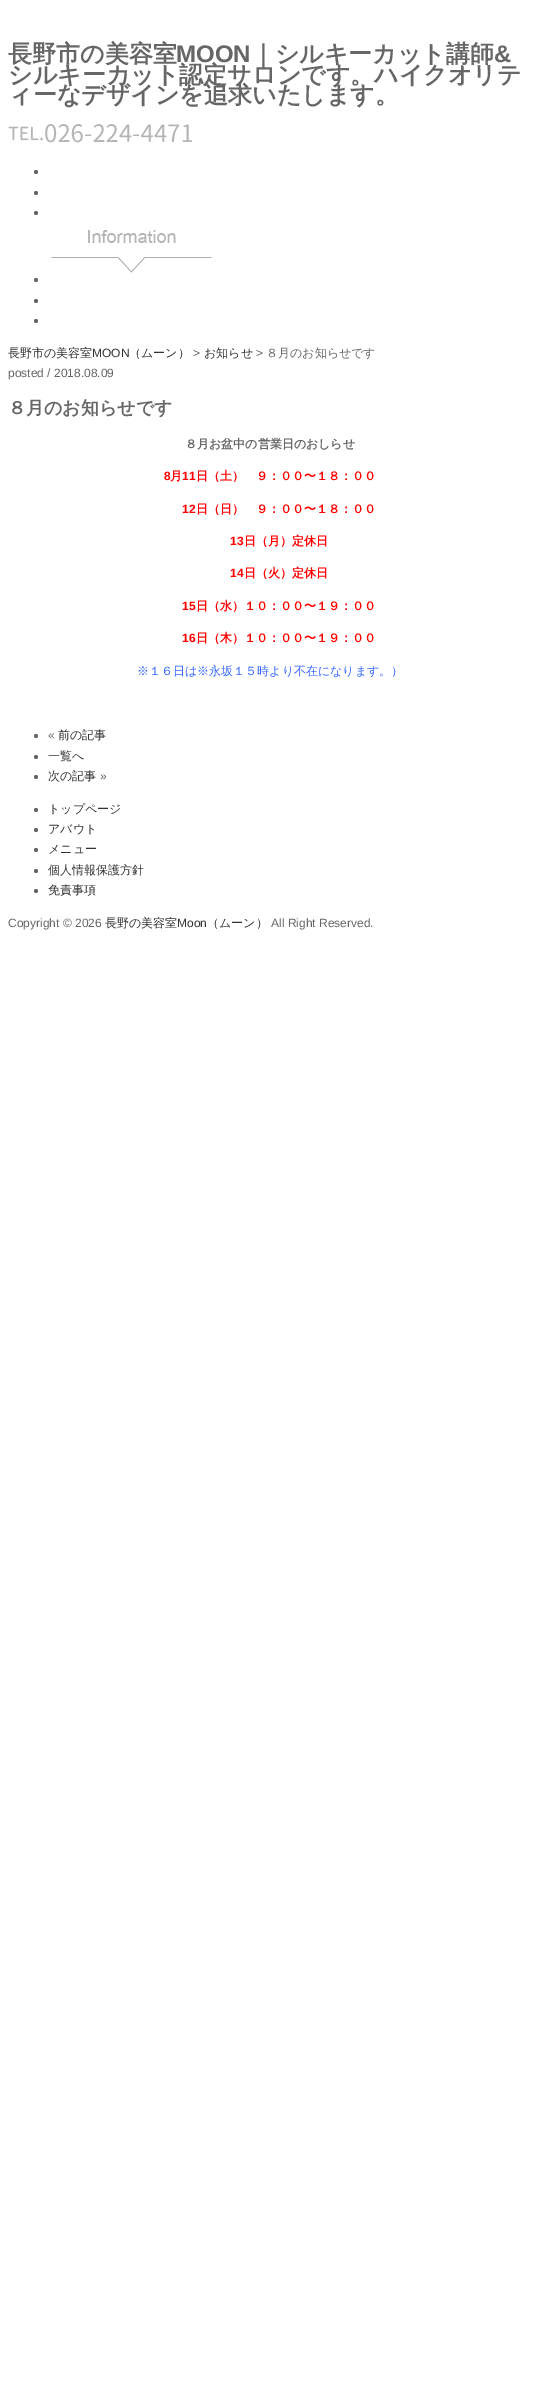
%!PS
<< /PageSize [539 2386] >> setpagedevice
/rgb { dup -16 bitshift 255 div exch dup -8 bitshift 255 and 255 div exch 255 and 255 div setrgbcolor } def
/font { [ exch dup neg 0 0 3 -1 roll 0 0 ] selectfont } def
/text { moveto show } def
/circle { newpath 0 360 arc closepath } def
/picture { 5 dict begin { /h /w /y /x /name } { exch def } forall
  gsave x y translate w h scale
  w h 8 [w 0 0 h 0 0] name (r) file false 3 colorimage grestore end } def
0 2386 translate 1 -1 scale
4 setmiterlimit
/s1 { /WenQuanYiZenHei-Bold 24 font 16#666666 rgb } def
/s2 { /LiberationSans-Bold 24 font 16#666666 rgb } def
/s3 { /WenQuanYiZenHei-Medium 12 font 16#333333 rgb } def
/s4 { /LiberationSans-Regular 12 font 16#333333 rgb } def
/s5 { /LiberationSans-Regular 12 font 16#666666 rgb } def
/s6 { /WenQuanYiZenHei-Medium 12 font 16#666666 rgb } def
/s7 { /WenQuanYiZenHei-Bold 18 font 16#666666 rgb } def
/s8 { /WenQuanYiZenHei-Bold 12 font 16#666666 rgb } def
/s9 { /LiberationSans-Bold 12 font 16#FF0000 rgb } def
/s10 { /WenQuanYiZenHei-Bold 12 font 16#FF0000 rgb } def
/s11 { /WenQuanYiZenHei-Medium 12 font 16#3366FF rgb } def
16#FFFFFF rgb
0 0 539 2386 rectfill
s1
(長野市の美容室) 8 62 text
s2
(MOON) 176 62 text
s1
(｜シルキーカット講師) 251 62 text
s2
(&) 494 62 text
s1
(シルキーカット認定サロンです。ハイクオリテ) 8 83 text
(ィーなデザインを追求いたします。) 8 103 text
(pic1.raw) 8 124 185 19 picture
36 172 2 circle fill
36 193 2 circle fill
36 213 2 circle fill
(pic2.raw) 51 230 161 43 picture
36 280 2 circle fill
36 301 2 circle fill
36 321 2 circle fill
s3
(長野市の美容室) 8 357 text
s4
(MOON) 92 357 text
s3
(（ムーン）) 129 357 text
s5
(>) 193 357 text
s3
(お知らせ) 204 357 text
s5
(>) 256 357 text
s6
(８月のお知らせです) 266 357 text
s5
(posted / 2018.08.09) 8 377 text
s7
(８月のお知らせです) 8 414 text
s8
(８月お盆中の営業日のおしらせ) 185 448 text
s9
(8) 164 480 text
s10
(月) 170 480 text
s9
(11) 182 480 text
s10
(日（土）　９：００〜１８：００) 196 480 text
s9
(12) 182 513 text
s10
(日（日）　９：００〜１８：００) 196 513 text
s9
(13) 230 545 text
s10
(日（月）定休日) 244 545 text
s9
(14) 230 577 text
s10
(日（火）定休日) 244 577 text
s9
(15) 182 610 text
s10
(日（水）１０：００〜１９：００) 196 610 text
s9
(16) 182 642 text
s10
(日（木）１０：００〜１９：００) 196 642 text
s11
(※１６日は※永坂１５時より不在になります。）) 137 675 text
16#666666 rgb
36 736 2 circle fill
s5
(«) 48 739 text
s3
(前の記事) 58 739 text
16#666666 rgb
36 757 2 circle fill
s3
(一覧へ) 48 760 text
16#666666 rgb
36 777 2 circle fill
s3
(次の記事) 48 780 text
s5
(») 100 780 text
36 810 2 circle fill
s3
(トップページ) 48 813 text
16#666666 rgb
36 830 2 circle fill
s3
(アバウト) 48 833 text
16#666666 rgb
36 850 2 circle fill
s3
(メニュー) 48 853 text
16#666666 rgb
36 871 2 circle fill
s3
(個人情報保護方針) 48 874 text
16#666666 rgb
36 891 2 circle fill
s3
(免責事項) 48 894 text
s5
(Copyright © 2026) 8 927 text
s3
(長野の美容室) 105 927 text
s4
(Moon) 177 927 text
s3
(（ムーン）) 207 927 text
s5
(All Right Reserved.) 271 927 text
showpage
